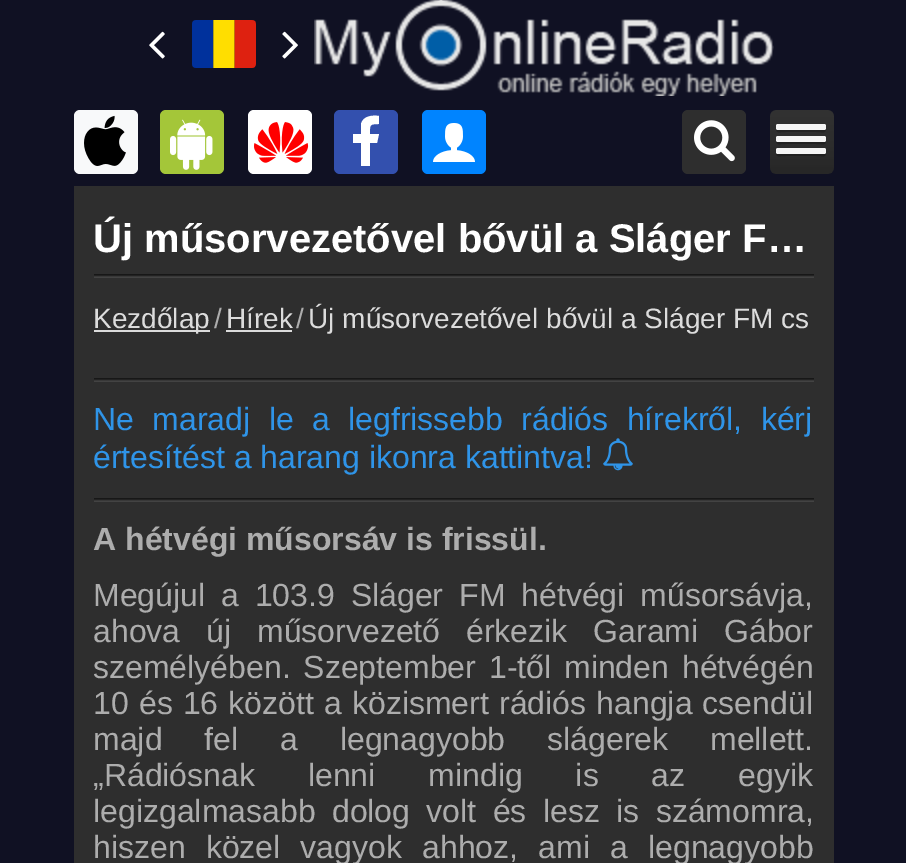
%!PS
<< /PageSize [906 863] >> setpagedevice
/rgb { dup -16 bitshift 255 div exch dup -8 bitshift 255 and 255 div exch 255 and 255 div setrgbcolor } def
/font { [ exch dup neg 0 0 3 -1 roll 0 0 ] selectfont } def
/text { moveto show } def
/roundrect { 5 dict begin { /r /h /w /y /x } { exch def } forall
  x r add y moveto x w add y 2 copy h add r arct x w add y h add x 1 index r arct
  x y h add x y r arct x y 2 copy exch w add exch r arct closepath end } def
/picture { 5 dict begin { /h /w /y /x /name } { exch def } forall
  gsave x y translate w h scale
  w h 8 [w 0 0 h 0 0] name (r) file false 3 colorimage grestore end } def
0 863 translate 1 -1 scale
4 setmiterlimit
/s1 { /LiberationSans-Bold 40 font 16#FFFFFF rgb } def
/s2 { /LiberationSans-Regular 28 font 16#DCDCDC rgb } def
/s3 { /LiberationSans-Regular 28 font 16#ADADAD rgb } def
/s4 { /LiberationSans-Regular 32 font 16#2F94E8 rgb } def
/s5 { /LiberationSans-Bold 32 font 16#ADADAD rgb } def
16#101123 rgb
0 0 906 863 rectfill
(pic1.raw) 149 31 16 28 picture
(pic2.raw) 192 20 64 48 picture
(pic3.raw) 282 31 16 28 picture
(pic4.raw) 314 0 460 96 picture
16#2E2E2E rgb
74 186 760 677 rectfill
16#F8F9FA rgb
74 110 64 64 6 roundrect fill
(pic5.raw) 84 115 42 51 picture
16#A4C639 rgb
160 110 64 64 6 roundrect fill
(pic6.raw) 170 119 43 51 picture
16#FFFFFF rgb
248 110 64 64 6 roundrect fill
(pic7.raw) 254 122 55 41 picture
16#3350AE rgb
334 110 64 64 6 roundrect fill
16#FFFFFF rgb
379 116 moveto 379 124 lineto 369 124 370 125 370 134 curveto 379 134 lineto 377 143 lineto 370 143 lineto 370 166 lineto 361 166 lineto 361 143 lineto 353 143 lineto 353 134 lineto 361 134 lineto 361 124 lineto 363 116 372 115 379 116 curveto closepath fill
16#0084FF rgb
422 110 64 64 6 roundrect fill
(pic8.raw) 433 123 42 39 picture
16#2E2E2E rgb
682 110 64 64 6 roundrect fill
(pic9.raw) 694 120 41 42 picture
(pic10.raw) 770 110 64 64 picture
16#232323 rgb
776 128 moveto 776 134 779 132 786 132 curveto 816 132 lineto 823 132 826 134 826 128 curveto 826 129 825 130 824 130 curveto 778 130 lineto 777 130 776 129 776 128 curveto closepath fill
16#F5F5F5 rgb
776 124 50 6 2 roundrect fill
16#222222 rgb
776 140 moveto 776 146 779 144 786 144 curveto 816 144 lineto 823 144 826 146 826 140 curveto 826 141 825 142 824 142 curveto 778 142 lineto 777 142 776 141 776 140 curveto closepath fill
16#F5F5F5 rgb
776 136 50 6 2 roundrect fill
16#202020 rgb
776 152 moveto 776 158 779 156 786 156 curveto 816 156 lineto 823 156 826 158 826 152 curveto 826 153 825 154 824 154 curveto 778 154 lineto 777 154 776 153 776 152 curveto closepath fill
16#F5F5F5 rgb
776 148 50 6 2 roundrect fill
s1
(Új műsorvezetővel bővül a Sláger F…) 93 252 text
(pic11.raw) 94 274 720 4 picture
16#DCDCDC rgb
94 330 116 2 rectfill
s2
(Kezdőlap) 93 328 text
s3
(/) 214 328 text
s2
(Hírek) 226 328 text
226 330 66 2 rectfill
s3
(/) 296 328 text
s2
(Új műsorvezetővel bővül a Sláger FM cs) 308 328 text
(pic11.raw) 94 378 720 4 picture
/LiberationSans-Regular 32 font
16#2F94E8 rgb
93 430 moveto 9.5 0 32 (Ne maradj le a legfrissebb rádiós hírekről, kérj) widthshow
(értesítést a harang ikonra kattintva!) 93 468 text
(pic12.raw) 603 438 30 33 picture
(pic11.raw) 94 498 720 4 picture
s5
(A hétvégi műsorsáv is frissül.) 93 550 text
/LiberationSans-Regular 32 font
93 606 moveto 7 0 32 (Megújul a 103.9 Sláger FM hétvégi műsorsávja,) widthshow
93 642 moveto 17 0 32 (ahova új műsorvezető érkezik Garami Gábor) widthshow
93 678 moveto 4 0 32 (személyében. Szeptember 1-től minden hétvégén) widthshow
93 714 moveto 1.25 0 32 (10 és 16 között a közismert rádiós hangja csendül) widthshow
93 750 moveto 33 0 32 (majd fel a legnagyobb slágerek mellett.) widthshow
93 786 moveto 44 0 32 („Rádiósnak lenni mindig is az egyik) widthshow
93 822 moveto 7.5 0 32 (legizgalmasabb dolog volt és lesz is számomra,) widthshow
93 858 moveto 11.25 0 32 (hiszen közel vagyok ahhoz, ami a legnagyobb) widthshow
showpage
